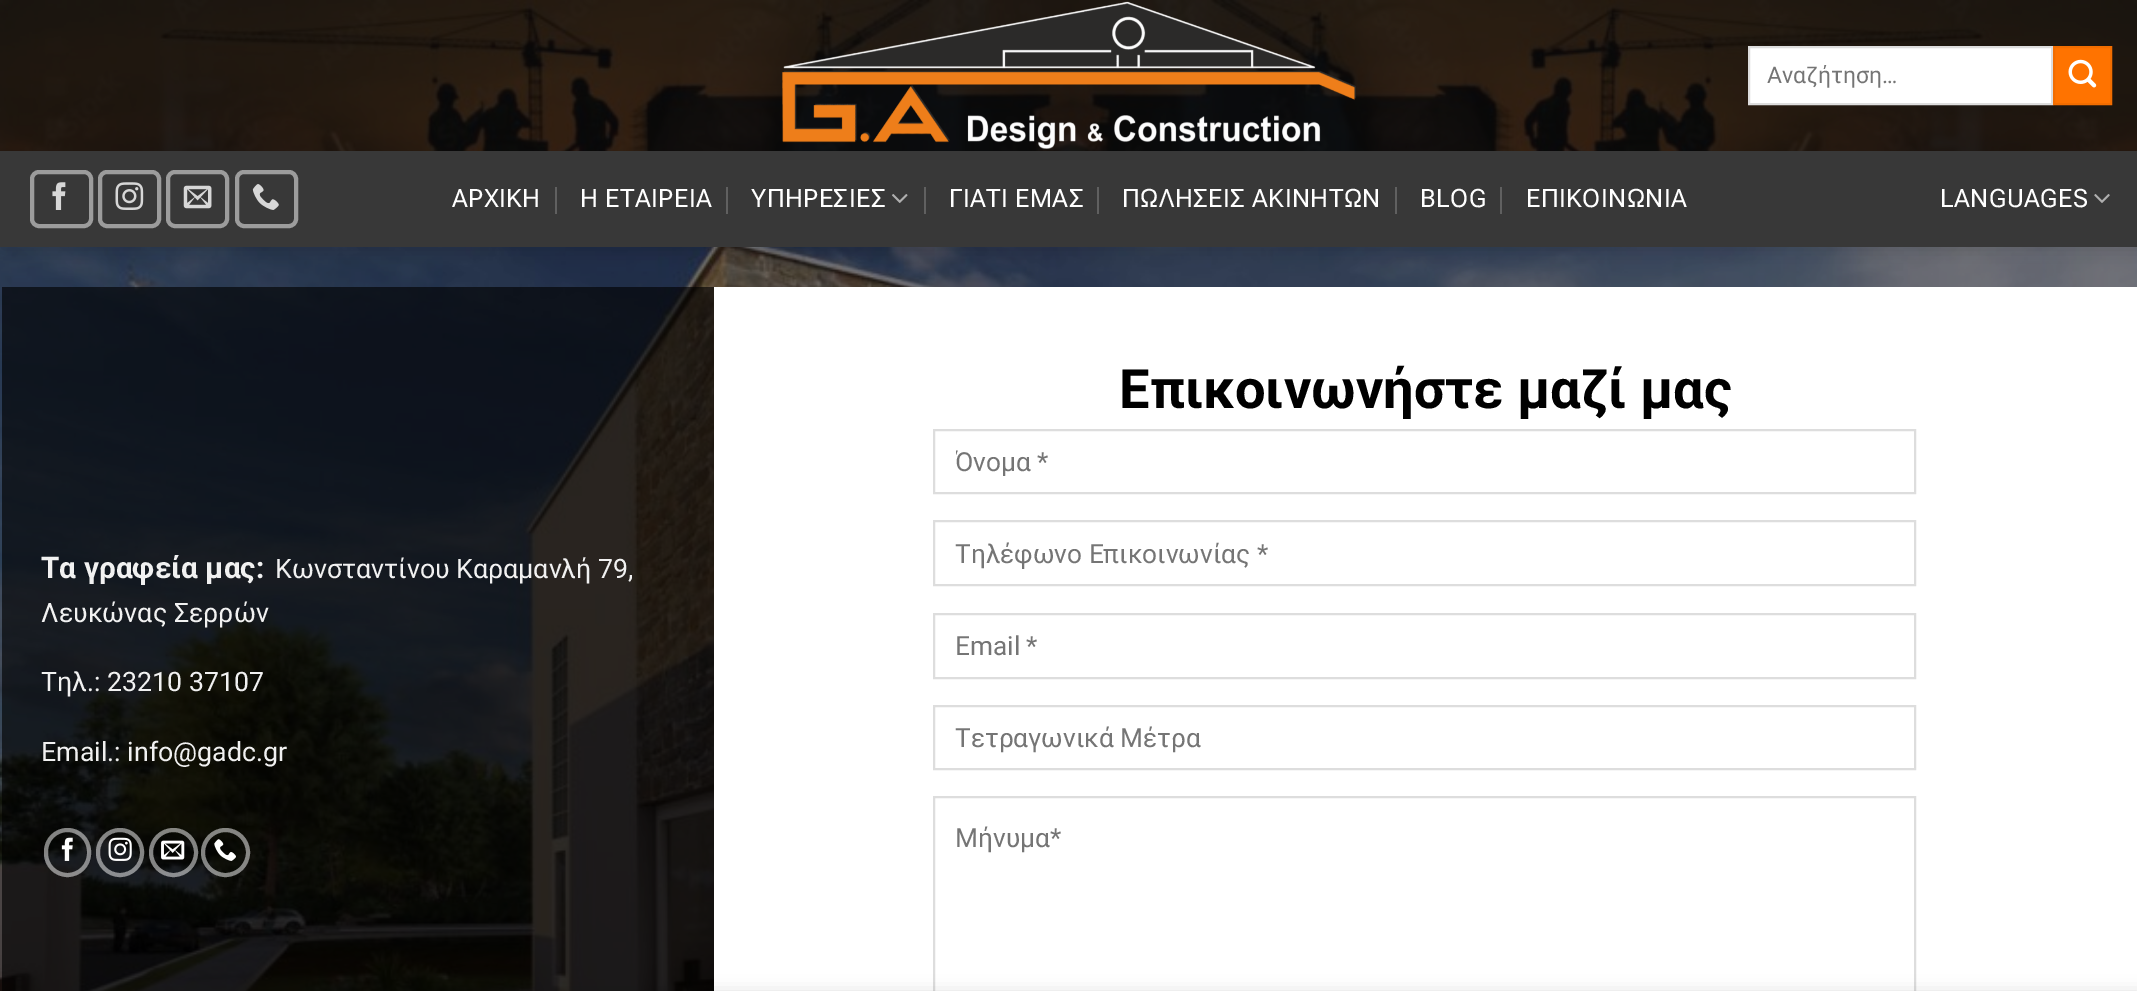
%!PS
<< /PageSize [2137 991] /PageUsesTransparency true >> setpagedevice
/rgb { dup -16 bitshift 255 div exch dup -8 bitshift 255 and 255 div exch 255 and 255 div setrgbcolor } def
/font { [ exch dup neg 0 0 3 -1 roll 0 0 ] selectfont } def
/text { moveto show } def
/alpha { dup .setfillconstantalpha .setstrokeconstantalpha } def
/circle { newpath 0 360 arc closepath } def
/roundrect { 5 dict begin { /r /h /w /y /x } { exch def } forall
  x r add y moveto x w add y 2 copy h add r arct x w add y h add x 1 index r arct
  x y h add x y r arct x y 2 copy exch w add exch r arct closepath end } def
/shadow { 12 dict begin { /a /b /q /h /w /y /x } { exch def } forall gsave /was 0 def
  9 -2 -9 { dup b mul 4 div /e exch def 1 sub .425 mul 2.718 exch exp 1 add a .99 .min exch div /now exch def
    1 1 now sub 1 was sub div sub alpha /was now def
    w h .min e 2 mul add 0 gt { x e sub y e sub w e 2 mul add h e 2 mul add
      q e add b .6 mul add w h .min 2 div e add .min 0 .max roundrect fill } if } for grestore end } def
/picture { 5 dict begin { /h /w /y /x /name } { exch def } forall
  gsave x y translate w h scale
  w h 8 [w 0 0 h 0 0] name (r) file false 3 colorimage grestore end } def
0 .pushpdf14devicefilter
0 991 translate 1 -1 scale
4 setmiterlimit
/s1 { /Roboto-Regular 23 font 16#757575 rgb } def
/s2 { /Roboto-Bold 29.75 font 16#F1F1F1 rgb } def
/s3 { /Roboto-Regular 26.75 font 16#F1F1F1 rgb } def
/s4 { /Roboto-Bold 54.25 font 16#000000 rgb } def
/s5 { /Roboto-Regular 26.25 font 16#757575 rgb } def
16#FFFFFF rgb
0 0 2137 991 rectfill
(pic10.raw) 0 247 2137 744 picture
16#000000 rgb
2 2 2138 247 0 9 0.15 shadow
(pic1.raw) 0 0 2137 151 picture
(pic2.raw) 782 1 574 148 picture
16#FFFFFF rgb
1749 47 moveto 2052 47 lineto 2052 104 lineto 1749 104 lineto closepath gsave fill grestore
16#DDDDDD rgb
2 setlinewidth
stroke
s1
(Αναζήτηση…) 1767 83 text
16#FF7300 rgb
2054 47 moveto 2111 47 lineto 2111 104 lineto 2054 104 lineto closepath gsave fill grestore
16#F26D00 rgb
stroke
(pic3.raw) 2068 59 29 29 picture
16#383838 rgb
0 151 2137 96 rectfill
16#9C9C9C rgb
4 setlinewidth
32 172 59 54 7 roundrect stroke
(pic4.raw) 52 182 14 28 picture
100 172 59 54 7 roundrect stroke
(pic5.raw) 115 182 29 28 picture
168 172 59 54 7 roundrect stroke
(pic6.raw) 183 185 29 24 picture
237 172 59 54 7 roundrect stroke
(pic7.raw) 252 184 27 26 picture
/RobotoFlex-Regular 25.25 font
16#FFFFFF rgb
452 207 moveto 0.5 0 (ΑΡΧΙΚΗ) ashow
16#606060 rgb
555 187 2 27 rectfill
16#FFFFFF rgb
580 207 moveto 0.5 0 (Η ΕΤΑΙΡΕΙΑ) ashow
16#606060 rgb
726 187 2 27 rectfill
16#FFFFFF rgb
751 207 moveto 0.5 0 (ΥΠΗΡΕΣΙΕΣ) ashow
(pic8.raw) 892 194 16 9 picture
16#606060 rgb
924 187 2 27 rectfill
16#FFFFFF rgb
949 207 moveto 0.5 0 (ΓΙΑΤΙ ΕΜΑΣ) ashow
16#606060 rgb
1097 187 2 27 rectfill
16#FFFFFF rgb
1122 207 moveto 0.5 0 (ΠΩΛΗΣΕΙΣ ΑΚΙΝΗΤΩΝ) ashow
16#606060 rgb
1395 187 2 27 rectfill
16#FFFFFF rgb
1420 207 moveto 0.5 0 (BLOG) ashow
16#606060 rgb
1500 187 2 27 rectfill
16#FFFFFF rgb
1526 207 moveto 0.5 0 (ΕΠΙΚΟΙΝΩΝΙΑ) ashow
1940 207 moveto 0.5 0 (LANGUAGES) ashow
(pic9.raw) 2094 194 16 9 picture
0.63 alpha
16#000000 rgb
2 287 712 704 rectfill
1 alpha
s2
(Τα γραφεία μας:) 41 578 text
s3
(Κωνσταντίνου Καραμανλή 79,) 275 578 text
(Λευκώνας Σερρών) 41 622 text
(Τηλ.: 23210 37107) 41 691 text
(Email.: info@gadc.gr) 41 761 text
0.5 alpha
16#FFFFFF rgb
46 830 43 45 21.5 roundrect stroke
1 alpha
(pic11.raw) 61 837 12 24 picture
0.5 alpha
98 830 44 45 22 roundrect stroke
1 alpha
(pic12.raw) 108 837 24 24 picture
0.5 alpha
173.5 852.5 22.5 circle stroke
1 alpha
(pic13.raw) 161 840 24 20 picture
0.5 alpha
225.5 852.5 22.5 circle stroke
1 alpha
(pic14.raw) 214 839 22 22 picture
714 287 1423 704 rectfill
s4
(Επικοινωνήστε μαζί μας) 1119 408 text
16#DDDDDD rgb
2 setlinewidth
934 430 981 63 rectstroke
gsave
956 445 938 31 rectclip
s5
(Όνομα *) 955 471 text
grestore
934 521 981 64 rectstroke
s5
(Τηλέφωνο Επικοινωνίας *) 955 563 text
16#DDDDDD rgb
934 614 981 64 rectstroke
s5
(Email *) 955 655 text
16#DDDDDD rgb
934 706 981 63 rectstroke
s5
(Τετραγωνικά Μέτρα) 955 747 text
16#DDDDDD rgb
934 797 981 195 rectstroke
s5
(Μήνυμα*) 955 847 text
16#000000 rgb
0 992 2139 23 0 8 0.14 shadow
.poppdf14devicefilter showpage
